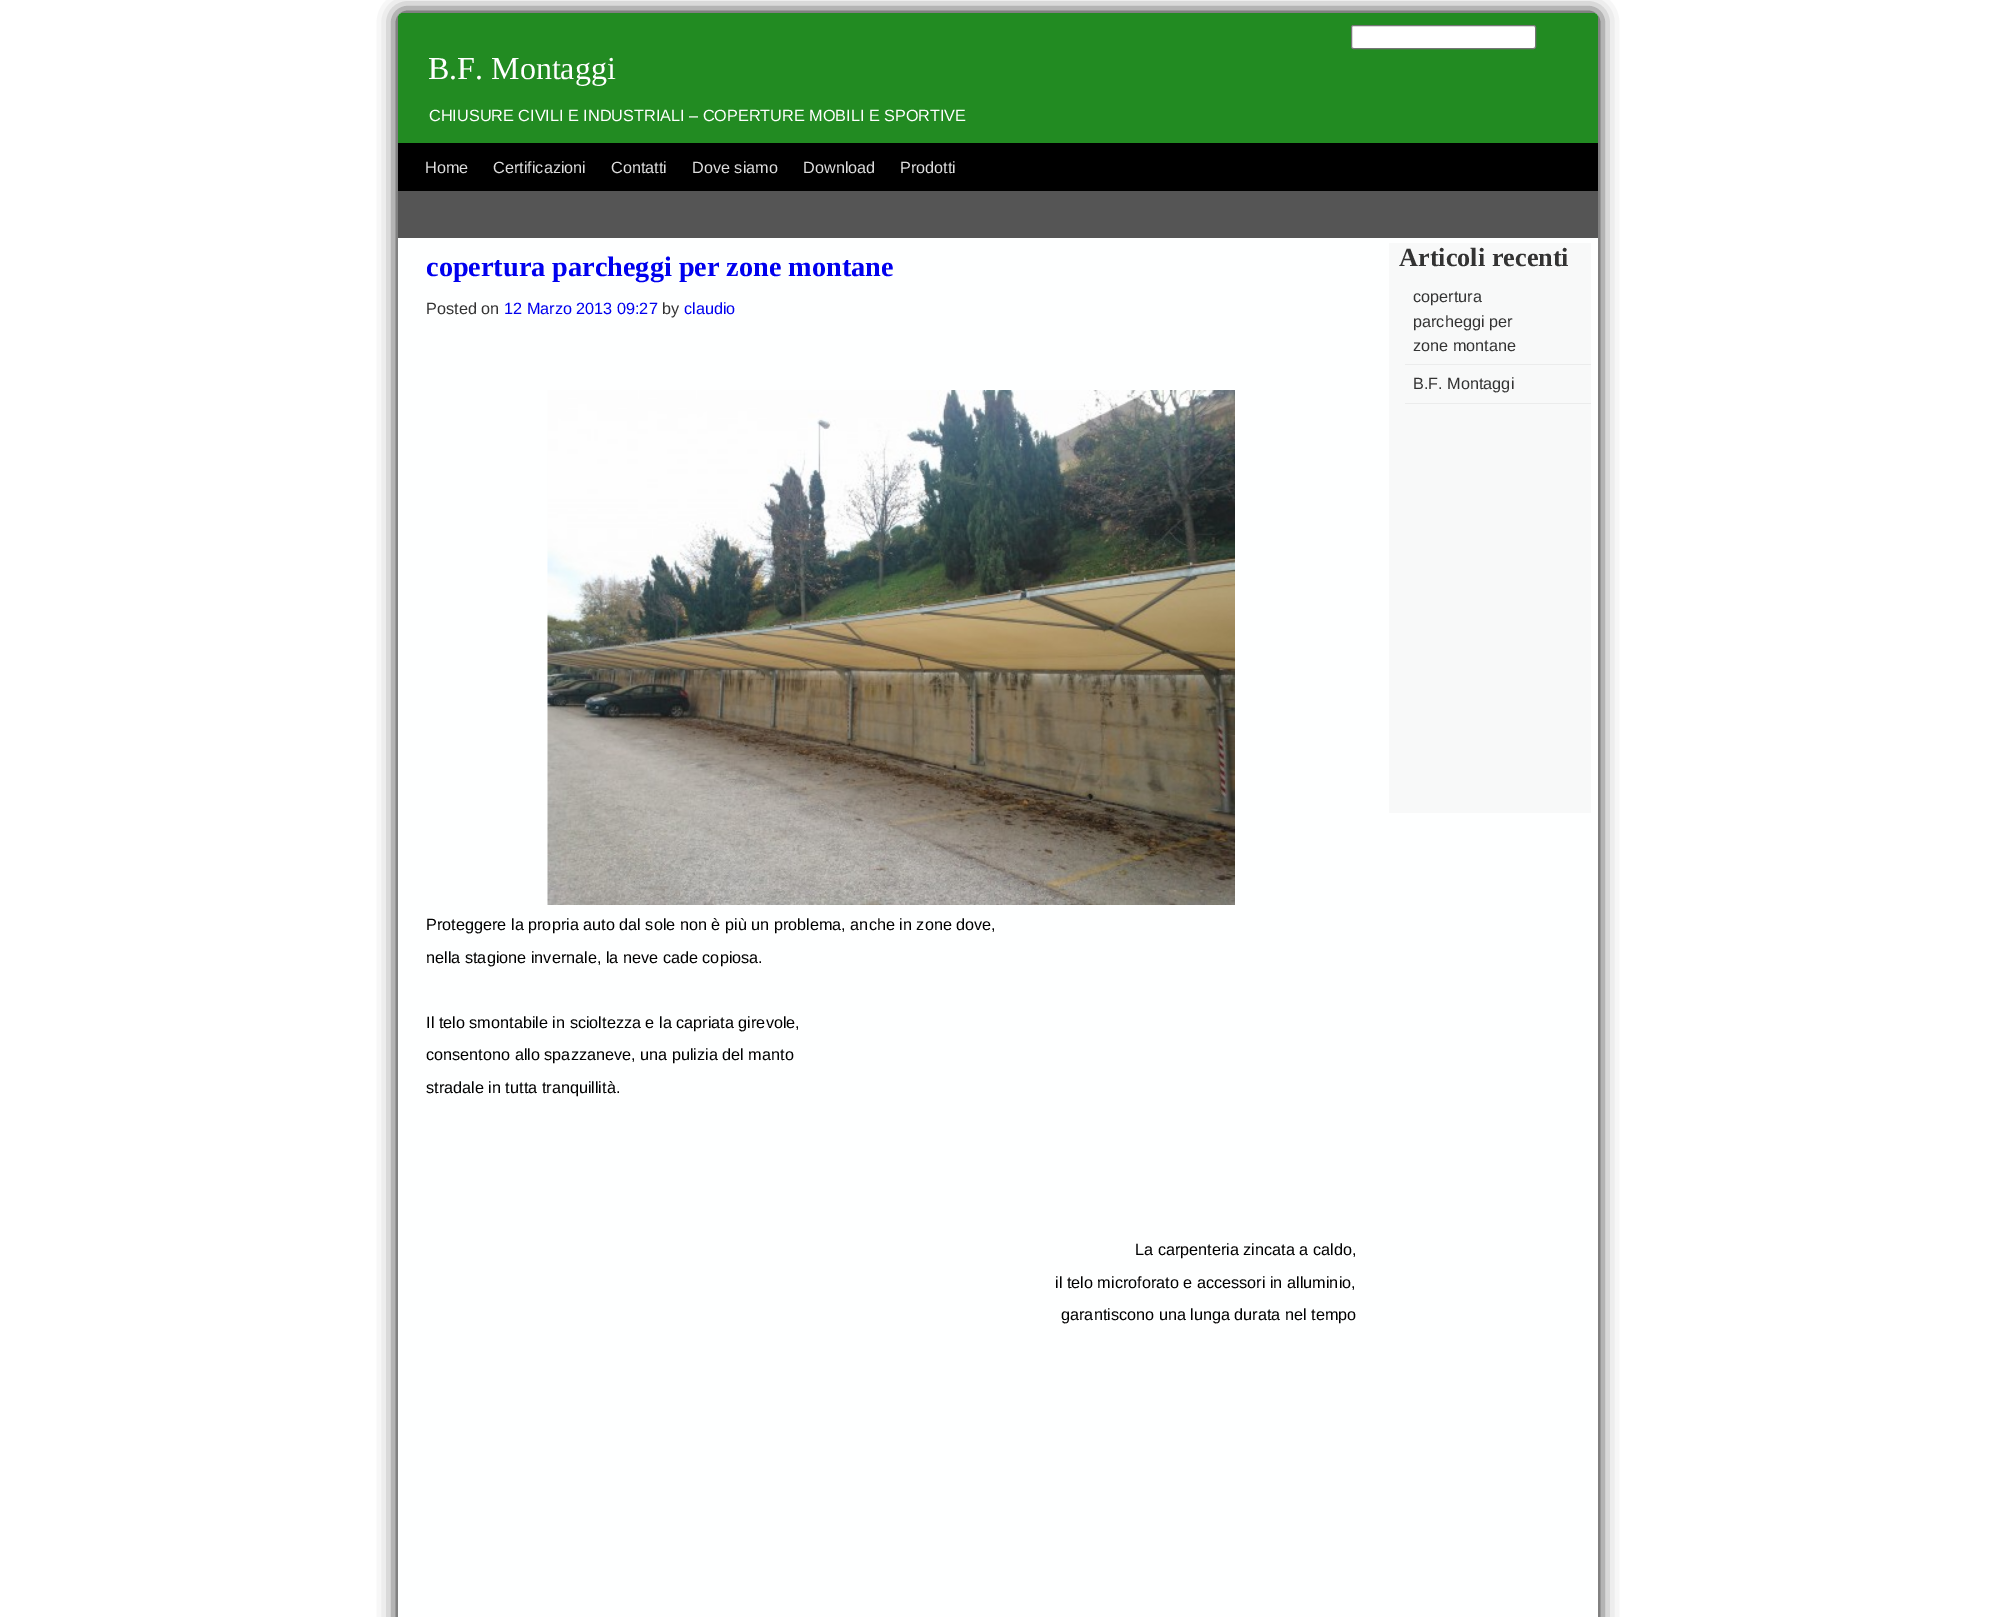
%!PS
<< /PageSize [1995 1617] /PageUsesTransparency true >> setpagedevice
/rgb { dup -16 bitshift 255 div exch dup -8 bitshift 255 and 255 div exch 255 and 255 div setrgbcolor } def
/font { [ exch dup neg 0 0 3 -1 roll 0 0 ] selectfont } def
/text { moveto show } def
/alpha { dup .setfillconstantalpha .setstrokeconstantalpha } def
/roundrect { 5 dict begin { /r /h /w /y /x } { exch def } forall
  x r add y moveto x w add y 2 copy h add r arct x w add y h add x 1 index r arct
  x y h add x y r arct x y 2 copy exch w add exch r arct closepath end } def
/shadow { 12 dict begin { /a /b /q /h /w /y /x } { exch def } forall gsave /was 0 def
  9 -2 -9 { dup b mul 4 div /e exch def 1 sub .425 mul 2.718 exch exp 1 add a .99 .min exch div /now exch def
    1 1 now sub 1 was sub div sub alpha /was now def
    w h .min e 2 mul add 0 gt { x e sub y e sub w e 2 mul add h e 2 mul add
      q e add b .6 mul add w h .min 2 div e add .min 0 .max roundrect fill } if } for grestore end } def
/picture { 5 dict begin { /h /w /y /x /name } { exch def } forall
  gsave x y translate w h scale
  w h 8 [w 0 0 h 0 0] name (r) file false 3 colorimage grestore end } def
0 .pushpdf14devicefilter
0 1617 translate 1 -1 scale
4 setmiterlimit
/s1 { /LiberationSerif-Regular 32 font 16#FFFFFF rgb } def
/s2 { /LiberationSans-Regular 16.25 font 16#FFFFFF rgb } def
/s3 { /LiberationSans-Regular 16.25 font 16#DDDDDD rgb } def
/s4 { /LiberationSerif-Bold 28.25 font 16#0000EE rgb } def
/s5 { /LiberationSans-Regular 16.25 font 16#333333 rgb } def
/s6 { /LiberationSans-Regular 16.25 font 16#0000EE rgb } def
/s7 { /LiberationSans-Regular 16.25 font 16#000000 rgb } def
/s8 { /LiberationSerif-Bold 26.25 font 16#333333 rgb } def
16#FFFFFF rgb
0 0 1995 1617 rectfill
16#000000 rgb
398 13 1200 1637 4 9.5 1 shadow
16#FEFFFF rgb
398 13 1200 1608 4 roundrect fill
16#228B22 rgb
402 13 moveto 1594 13 lineto 1596 13 1598 15 1598 17 curveto 1598 238 lineto 398 238 lineto 398 17 lineto 398 15 400 13 402 13 curveto closepath fill
16#FFFFFF rgb
1351.5 25.5 184 23 2 roundrect gsave fill grestore
16#767676 rgb
stroke
s1
(B.F. Montaggi) 428 79 text
s2
(CHIUSURE CIVILI E INDUSTRIALI – COPERTURE MOBILI E SPORTIVE) 429 121 text
16#000000 rgb
398 143 1200 48 rectfill
s3
(Home) 425 173 text
(Certificazioni) 493 173 text
(Contatti) 611 173 text
(Dove siamo) 692 173 text
(Download) 803 173 text
(Prodotti) 900 173 text
16#555555 rgb
398 191 1200 47 rectfill
s4
(copertura parcheggi per zone montane) 426 276 text
s5
(Posted on) 426 314 text
s6
(12 Marzo 2013 09:27) 504 314 text
s5
(by) 662 314 text
s6
(claudio) 684 314 text
(pic1.raw) 547 390 688 515 picture
s7
(Proteggere la propria auto dal sole non è più un problema, anche in zone dove,) 426 930 text
(nella stagione invernale, la neve cade copiosa.) 426 963 text
(Il telo smontabile in scioltezza e la capriata girevole,) 426 1028 text
(consentono allo spazzaneve, una pulizia del manto) 426 1060 text
(stradale in tutta tranquillità.) 426 1093 text
(La carpenteria zincata a caldo,) 1135 1255 text
(il telo microforato e accessori in alluminio,) 1055 1288 text
(garantiscono una lunga durata nel tempo) 1061 1320 text
16#F8F9F9 rgb
1389 243 202 570 rectfill
s8
(Articoli recenti) 1399 266 text
16#EBECEC rgb
1405 364 186 1 rectfill
s5
(copertura) 1413 302 text
(parcheggi per) 1413 327 text
(zone montane) 1413 351 text
16#EBECEC rgb
1405 403 186 1 rectfill
s5
(B.F. Montaggi) 1413 389 text
.poppdf14devicefilter showpage
